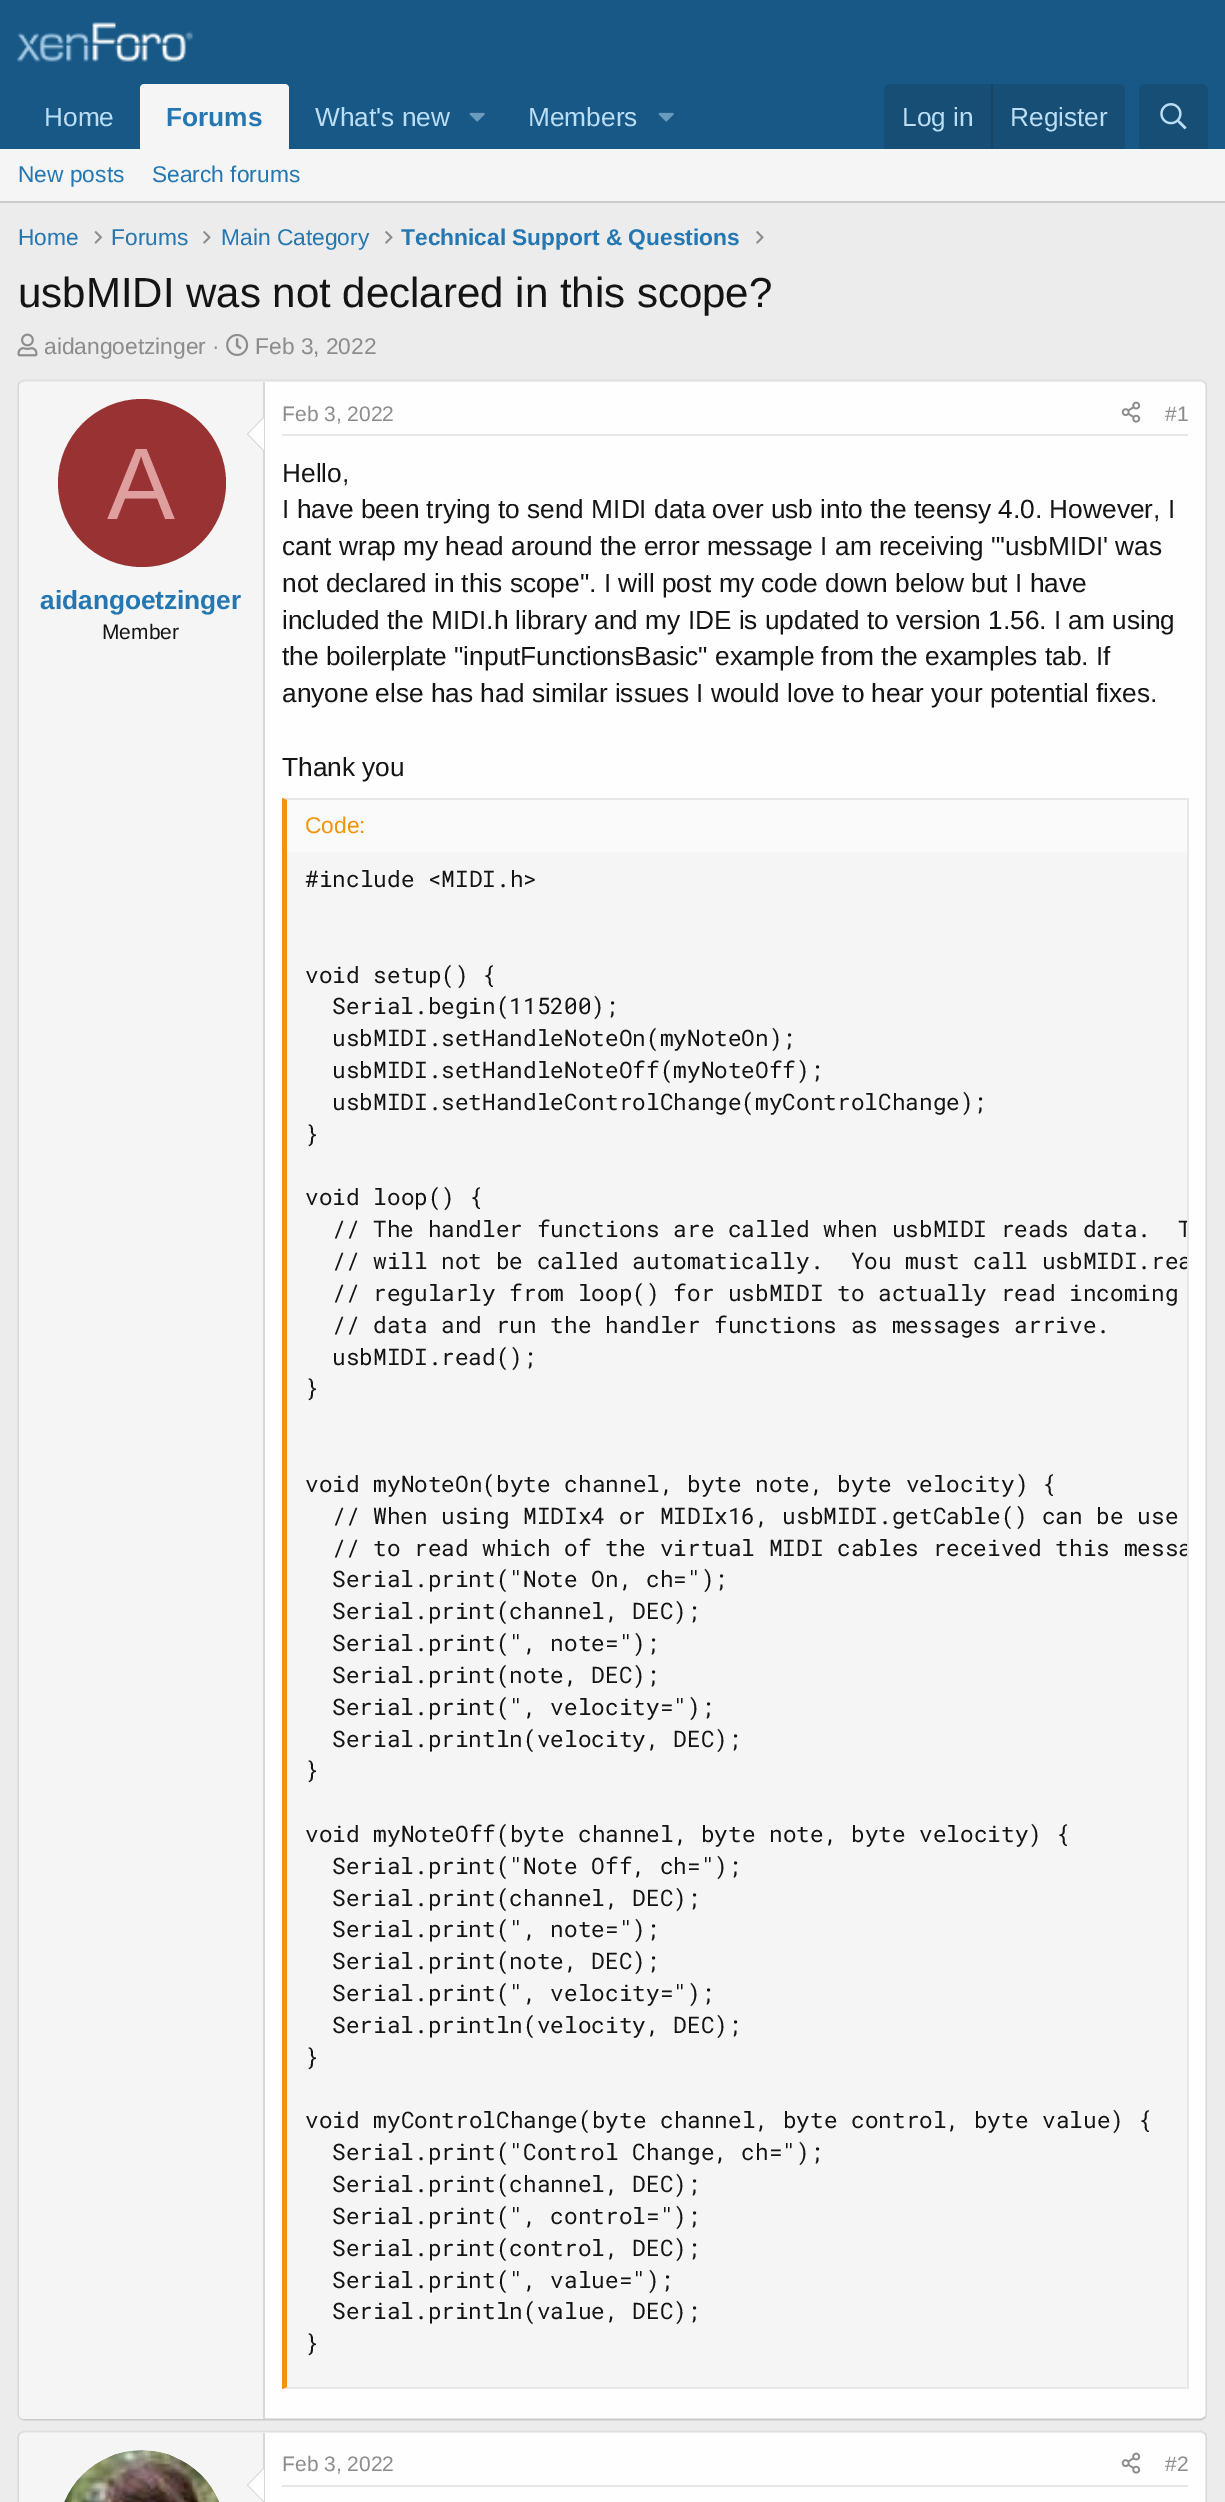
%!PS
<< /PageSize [1225 2502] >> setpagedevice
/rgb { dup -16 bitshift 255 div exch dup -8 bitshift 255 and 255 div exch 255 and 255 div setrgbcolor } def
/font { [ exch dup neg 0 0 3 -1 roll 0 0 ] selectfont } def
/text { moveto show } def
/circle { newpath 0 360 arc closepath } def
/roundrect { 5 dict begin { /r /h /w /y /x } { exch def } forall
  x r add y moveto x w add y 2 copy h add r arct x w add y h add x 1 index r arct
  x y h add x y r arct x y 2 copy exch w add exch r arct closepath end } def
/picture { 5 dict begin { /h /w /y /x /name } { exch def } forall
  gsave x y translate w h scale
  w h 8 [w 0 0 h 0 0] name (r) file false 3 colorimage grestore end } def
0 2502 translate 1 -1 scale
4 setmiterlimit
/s1 { /LiberationSans-Regular 26.25 font 16#BCDEF5 rgb } def
/s2 { /LiberationSans-Bold 26.25 font 16#2577B1 rgb } def
/s3 { /LiberationSans-Regular 22.75 font 16#2577B1 rgb } def
/s4 { /LiberationSans-Bold 22.75 font 16#2577B1 rgb } def
/s5 { /LiberationSans-Regular 42 font 16#141414 rgb } def
/s6 { /LiberationSans-Regular 22.75 font 16#8C8C8C rgb } def
/s7 { /LiberationSans-Regular 102 font 16#DF9F9F rgb } def
/s8 { /LiberationSans-Regular 21 font 16#141414 rgb } def
/s9 { /LiberationSans-Regular 21 font 16#8C8C8C rgb } def
/s10 { /LiberationSans-Regular 26.25 font 16#141414 rgb } def
/s11 { /LiberationSans-Regular 22.75 font 16#F2930D rgb } def
/s12 { /RobotoMono-Regular 22.75 font 16#141414 rgb } def
16#ECECEC rgb
0 0 1225 2502 rectfill
16#185886 rgb
0 0 1225 149 rectfill
(pic1.raw) 17 22 176 40 picture
s1
(Home) 44 126 text
16#F5F5F5 rgb
144 84 moveto 285 84 lineto 287 84 289 86 289 88 curveto 289 149 lineto 140 149 lineto 140 88 lineto 140 86 142 84 144 84 curveto closepath fill
s2
(Forums) 166 126 text
s1
(What's new) 315 126 text
(pic2.raw) 469 112 16 10 picture
(Members) 528 126 text
(pic2.raw) 658 112 16 10 picture
16#174E75 rgb
891 84 moveto 1118 84 lineto 1122 84 1125 87 1125 91 curveto 1125 149 lineto 884 149 lineto 884 91 lineto 884 87 887 84 891 84 curveto closepath fill
s1
(Log in) 902 126 text
16#174566 rgb
991 84 2 65 rectfill
s1
(Register) 1010 126 text
16#174E75 rgb
1146 84 moveto 1201 84 lineto 1205 84 1208 87 1208 91 curveto 1208 149 lineto 1139 149 lineto 1139 91 lineto 1139 87 1142 84 1146 84 curveto closepath fill
(pic3.raw) 1160 103 27 27 picture
16#F5F5F5 rgb
0 149 1225 52 rectfill
16#CBCBCB rgb
0 201 1225 2 rectfill
s3
(New posts) 18 182 text
(Search forums) 152 182 text
(Home) 18 245 text
(pic4.raw) 94 231 9 13 picture
(Forums) 111 245 text
(pic5.raw) 203 231 8 13 picture
(Main Category) 221 245 text
(pic5.raw) 385 231 8 13 picture
s4
(Technical Support & Questions) 401 245 text
(pic5.raw) 756 231 8 13 picture
s5
(usbMIDI was not declared in this scope?) 18 307 text
(pic6.raw) 17 333 21 24 picture
s6
(aidangoetzinger ·) 44 354 text
(pic7.raw) 226 334 23 22 picture
(Feb 3, 2022) 255 354 text
16#FEFEFE rgb
18 380 1190 2040 7 roundrect fill
16#DFDFDF rgb
1.8 setlinewidth
20 382.5 moveto 21.5 381.5 23 380.5 24.5 380.5 curveto 1200.5 380.5 lineto 1202 380.5 1203.5 381.5 1205 382.5 curveto stroke
16#D8D8D8 rgb
1205 382.5 moveto 1206 383.5 1206.5 385 1206.5 387 curveto 1206.5 2413 lineto 1206.5 2415 1206 2416.5 1205 2417.5 curveto stroke
16#CBCBCB rgb
1205 2417.5 moveto 1203.5 2418.5 1202 2419.5 1200.5 2419.5 curveto 24.5 2419.5 lineto 23 2419.5 21.5 2418.5 20 2417.5 curveto stroke
16#D8D8D8 rgb
20 2417.5 moveto 19 2416.5 18.5 2415 18.5 2413 curveto 18.5 387 lineto 18.5 385 19 383.5 20 382.5 curveto stroke
16#F5F5F5 rgb
24 382 moveto 264 382 lineto 264 2419 lineto 24 2419 lineto 21 2419 19 2417 19 2414 curveto 19 387 lineto 19 384 21 382 24 382 curveto closepath fill
16#D8D8D8 rgb
263 382 2 2037 rectfill
264 416.5 moveto 264 451.5 lineto 247 434 lineto closepath fill
16#FEFEFE rgb
264 418 moveto 264 450 lineto 248.5 434 lineto closepath fill
16#993333 rgb
142 483 84 circle fill
s7
(A) 107 519 text
s2
(aidangoetzinger) 40 609 text
s8
(Member) 102 639 text
16#E7E7E7 rgb
282 434 906 2 rectfill
s9
(Feb 3, 2022) 282 421 text
(pic8.raw) 1121 401 20 22 picture
(#1) 1165 421 text
s10
(Hello,) 282 482 text
(I have been trying to send MIDI data over usb into the teensy 4.0. However, I) 282 518 text
(cant wrap my head around the error message I am receiving "'usbMIDI' was) 282 555 text
(not declared in this scope". I will post my code down below but I have) 282 592 text
(included the MIDI.h library and my IDE is updated to version 1.56. I am using) 282 629 text
(the boilerplate "inputFunctionsBasic" example from the examples tab. If) 282 665 text
(anyone else has had similar issues I would love to hear your potential fixes.) 282 702 text
(Thank you) 282 776 text
16#F5F5F5 rgb
287 852 900 1535 rectfill
16#E7E7E7 rgb
282 798 moveto 1188 798 lineto 1186 800 lineto 287 800 lineto closepath fill
1187 798 2 1591 rectfill
1188 2389 moveto 282 2389 lineto 287 2387 lineto 1186 2387 lineto closepath fill
16#F2930D rgb
282 2389 moveto 282 798 lineto 287 800 lineto 287 2387 lineto closepath fill
16#FAFAFA rgb
287 800 900 52 rectfill
s11
(Code:) 305 833 text
s12
(#include <MIDI.h>) 305 887 text
(void setup\(\) {) 305 983 text
(Serial.begin\(115200\);) 332 1014 text
(usbMIDI.setHandleNoteOn\(myNoteOn\);) 332 1046 text
(usbMIDI.setHandleNoteOff\(myNoteOff\);) 332 1078 text
(usbMIDI.setHandleControlChange\(myControlChange\);) 332 1110 text
(}) 305 1142 text
(void loop\(\) {) 305 1205 text
gsave
287 852 900 1535 rectclip
(// The handler functions are called when usbMIDI reads data.  T) 332 1237 text
(// will not be called automatically.  You must call usbMIDI.rea) 332 1269 text
grestore
(// regularly from loop\(\) for usbMIDI to actually read incoming) 332 1301 text
(// data and run the handler functions as messages arrive.) 332 1333 text
(usbMIDI.read\(\);) 332 1365 text
(}) 305 1396 text
(void myNoteOn\(byte channel, byte note, byte velocity\) {) 305 1492 text
(// When using MIDIx4 or MIDIx16, usbMIDI.getCable\(\) can be use) 332 1524 text
gsave
287 852 900 1535 rectclip
(// to read which of the virtual MIDI cables received this messa) 332 1556 text
grestore
(Serial.print\("Note On, ch="\);) 332 1587 text
(Serial.print\(channel, DEC\);) 332 1619 text
(Serial.print\(", note="\);) 332 1651 text
(Serial.print\(note, DEC\);) 332 1683 text
(Serial.print\(", velocity="\);) 332 1715 text
(Serial.println\(velocity, DEC\);) 332 1747 text
(}) 305 1778 text
(void myNoteOff\(byte channel, byte note, byte velocity\) {) 305 1842 text
(Serial.print\("Note Off, ch="\);) 332 1874 text
(Serial.print\(channel, DEC\);) 332 1906 text
(Serial.print\(", note="\);) 332 1937 text
(Serial.print\(note, DEC\);) 332 1969 text
(Serial.print\(", velocity="\);) 332 2001 text
(Serial.println\(velocity, DEC\);) 332 2033 text
(}) 305 2065 text
(void myControlChange\(byte channel, byte control, byte value\) {) 305 2128 text
(Serial.print\("Control Change, ch="\);) 332 2160 text
(Serial.print\(channel, DEC\);) 332 2192 text
(Serial.print\(", control="\);) 332 2224 text
(Serial.print\(control, DEC\);) 332 2256 text
(Serial.print\(", value="\);) 332 2288 text
(Serial.println\(value, DEC\);) 332 2319 text
(}) 305 2351 text
16#FEFEFE rgb
18 2431 1190 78 7 roundrect fill
16#DFDFDF rgb
20 2433.5 moveto 21.5 2432.5 23 2431.5 24.5 2431.5 curveto 1200.5 2431.5 lineto 1202 2431.5 1203.5 2432.5 1205 2433.5 curveto stroke
16#D8D8D8 rgb
1205 2433.5 moveto 1206 2434.5 1206.5 2436 1206.5 2438 curveto 1206.5 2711 lineto 1206.5 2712.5 1206 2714 1205 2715 curveto stroke
20 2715 moveto 19 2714 18.5 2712.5 18.5 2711 curveto 18.5 2438 lineto 18.5 2436 19 2434.5 20 2433.5 curveto stroke
16#F5F5F5 rgb
24 2433 moveto 264 2433 lineto 264 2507 lineto 24 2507 lineto 21 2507 19 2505 19 2502 curveto 19 2438 lineto 19 2435 21 2433 24 2433 curveto closepath fill
16#D8D8D8 rgb
263 2433 2 69 rectfill
16#FEFEFE rgb
58 2450 168 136 84 roundrect fill
(pic9.raw) 64 2450 156 52 picture
16#D8D8D8 rgb
264 2467.5 moveto 264 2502.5 lineto 247 2485 lineto closepath fill
16#FEFEFE rgb
264 2469 moveto 264 2501 lineto 248.5 2485 lineto closepath fill
16#E7E7E7 rgb
282 2485 906 2 rectfill
s9
(Feb 3, 2022) 282 2471 text
(pic8.raw) 1121 2452 20 22 picture
(#2) 1165 2471 text
showpage
